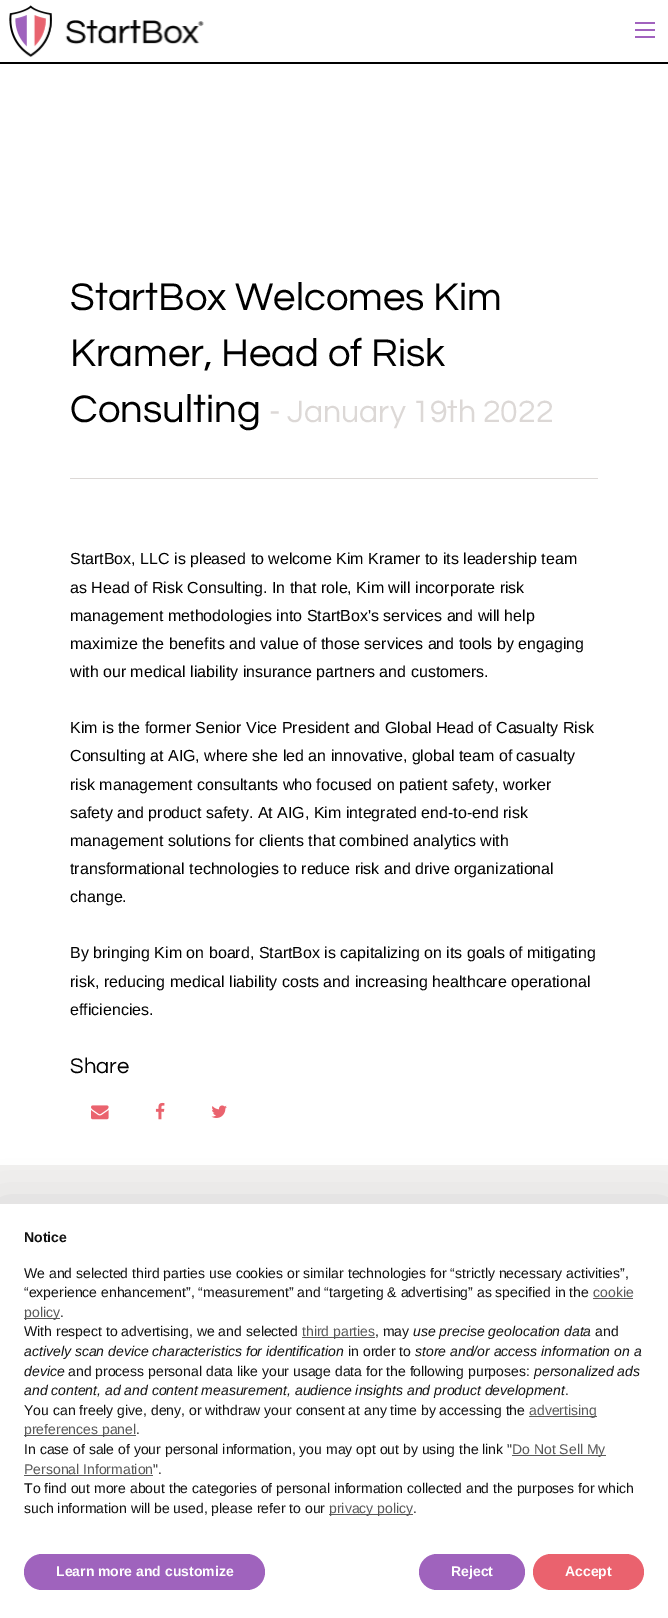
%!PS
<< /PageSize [668 1618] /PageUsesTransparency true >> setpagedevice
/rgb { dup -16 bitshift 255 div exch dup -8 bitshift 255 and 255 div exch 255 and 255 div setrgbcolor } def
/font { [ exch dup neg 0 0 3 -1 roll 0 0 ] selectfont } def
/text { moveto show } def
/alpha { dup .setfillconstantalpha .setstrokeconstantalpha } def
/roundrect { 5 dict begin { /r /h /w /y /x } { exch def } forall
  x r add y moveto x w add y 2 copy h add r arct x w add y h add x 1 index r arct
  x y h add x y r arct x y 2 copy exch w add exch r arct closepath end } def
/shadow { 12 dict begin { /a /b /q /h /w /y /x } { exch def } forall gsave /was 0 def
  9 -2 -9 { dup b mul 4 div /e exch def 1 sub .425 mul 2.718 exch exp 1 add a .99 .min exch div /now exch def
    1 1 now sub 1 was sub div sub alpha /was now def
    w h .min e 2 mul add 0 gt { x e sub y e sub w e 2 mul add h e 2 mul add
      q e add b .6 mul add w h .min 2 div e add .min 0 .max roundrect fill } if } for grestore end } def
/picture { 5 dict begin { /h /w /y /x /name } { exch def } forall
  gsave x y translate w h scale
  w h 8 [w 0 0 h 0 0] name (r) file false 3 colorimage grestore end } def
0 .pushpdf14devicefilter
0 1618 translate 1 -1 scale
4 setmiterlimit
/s1 { /Questrial-Regular 40 font 16#000000 rgb } def
/s2 { /Questrial-Regular 32 font 16#DCD8D6 rgb } def
/s3 { /LiberationSans-Regular 16 font 16#000000 rgb } def
/s4 { /Questrial-Regular 22 font 16#000000 rgb } def
/s5 { /LiberationSans-Bold 14 font 16#111111 rgb } def
/s6 { /LiberationSans-Regular 14 font 16#111111 rgb } def
/s7 { /LiberationSans-Regular 14 font 16#585858 rgb } def
/s8 { /LiberationSans-Italic 14 font 16#111111 rgb } def
/s9 { /LiberationSans-Bold 14 font 16#FFFFFF rgb } def
16#FFFFFF rgb
0 0 668 1618 rectfill
16#000000 rgb
0 62 668 2 rectfill
(pic1.raw) 9 5 195 52 picture
16#A162BE rgb
635 36 20 2 rectfill
635 29 20 2 rectfill
635 22 20 2 rectfill
s1
(StartBox Welcomes Kim) 70 310 text
(Kramer, Head of Risk) 70 366 text
(Consulting) 70 422 text
s2
(- January 19th 2022) 269 422 text
70 478 528 1 rectfill
s3
(StartBox, LLC is pleased to welcome Kim Kramer to its leadership team) 70 564 text
(as Head of Risk Consulting. In that role, Kim will incorporate risk) 70 593 text
(management methodologies into StartBox's services and will help) 70 621 text
(maximize the benefits and value of those services and tools by engaging) 70 649 text
(with our medical liability insurance partners and customers.) 70 677 text
(Kim is the former Senior Vice President and Global Head of Casualty Risk) 70 733 text
(Consulting at AIG, where she led an innovative, global team of casualty) 70 761 text
(risk management consultants who focused on patient safety, worker) 70 790 text
(safety and product safety. At AIG, Kim integrated end-to-end risk) 70 818 text
(management solutions for clients that combined analytics with) 70 846 text
(transformational technologies to reduce risk and drive organizational) 70 874 text
(change.) 70 902 text
(By bringing Kim on board, StartBox is capitalizing on its goals of mitigating) 70 958 text
(risk, reducing medical liability costs and increasing healthcare operational) 70 987 text
(efficiencies.) 70 1015 text
s4
(Share) 70 1073 text
(pic2.raw) 91 1105 18 15 picture
(pic3.raw) 155 1102 10 18 picture
(pic4.raw) 211 1105 16 13 picture
16#F1F0EF rgb
0 1165 668 39 rectfill
16#000000 rgb
0 1212 668 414 0 24 0.15 shadow
16#FFFFFF rgb
0 1204 668 414 rectfill
s5
(Notice) 24 1242 text
s6
(We and selected third parties use cookies or similar technologies for “strictly necessary activities”,) 24 1278 text
(“experience enhancement”, “measurement” and “targeting & advertising” as specified in the) 24 1297 text
s7
(cookie) 593 1297 text
593 1298 40 1 rectfill
24 1318 36 1 rectfill
(policy) 24 1317 text
s6
(.) 60 1317 text
(With respect to advertising, we and selected) 24 1336 text
16#585858 rgb
302 1337 73 1 rectfill
(third parties) 302 1336 text
s6
(, may) 375 1336 text
s8
(use precise geolocation data) 413 1336 text
s6
(and) 595 1336 text
s8
(actively scan device characteristics for identification) 24 1356 text
s6
(in order to) 348 1356 text
s8
(store and/or access information on a) 415 1356 text
(device) 24 1376 text
s6
(and process personal data like your usage data for the following purposes:) 68 1376 text
s8
(personalized ads) 534 1376 text
(and content, ad and content measurement, audience insights and product development) 24 1395 text
s6
(.) 565 1395 text
(You can freely give, deny, or withdraw your consent at any time by accessing the) 24 1415 text
16#585858 rgb
529 1416 68 1 rectfill
(advertising) 529 1415 text
24 1435 112 1 rectfill
(preferences panel) 24 1434 text
s6
(.) 136 1434 text
(In case of sale of your personal information, you may opt out by using the link ") 24 1454 text
16#585858 rgb
512 1455 94 1 rectfill
(Do Not Sell My) 512 1454 text
(Personal Information) 24 1474 text
24 1475 129 1 rectfill
s6
(".) 153 1474 text
(To find out more about the categories of personal information collected and the purposes for which) 24 1493 text
(such information will be used, please refer to our) 24 1513 text
16#585858 rgb
329 1514 84 1 rectfill
(privacy policy) 329 1513 text
s6
(.) 413 1513 text
16#9F63BD rgb
24 1554 241 36 18 roundrect fill
s9
(Learn more and customize) 56 1576 text
16#9F63BD rgb
419 1554 106 36 18 roundrect fill
s9
(Reject) 451 1576 text
16#EA626E rgb
533 1554 111 36 18 roundrect fill
s9
(Accept) 565 1576 text
.poppdf14devicefilter showpage
